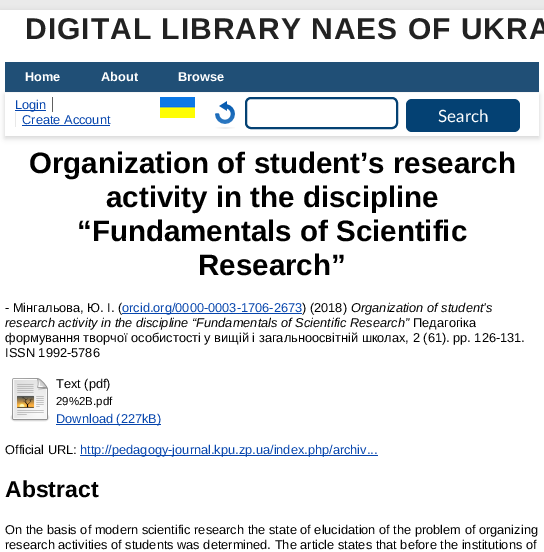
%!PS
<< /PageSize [544 552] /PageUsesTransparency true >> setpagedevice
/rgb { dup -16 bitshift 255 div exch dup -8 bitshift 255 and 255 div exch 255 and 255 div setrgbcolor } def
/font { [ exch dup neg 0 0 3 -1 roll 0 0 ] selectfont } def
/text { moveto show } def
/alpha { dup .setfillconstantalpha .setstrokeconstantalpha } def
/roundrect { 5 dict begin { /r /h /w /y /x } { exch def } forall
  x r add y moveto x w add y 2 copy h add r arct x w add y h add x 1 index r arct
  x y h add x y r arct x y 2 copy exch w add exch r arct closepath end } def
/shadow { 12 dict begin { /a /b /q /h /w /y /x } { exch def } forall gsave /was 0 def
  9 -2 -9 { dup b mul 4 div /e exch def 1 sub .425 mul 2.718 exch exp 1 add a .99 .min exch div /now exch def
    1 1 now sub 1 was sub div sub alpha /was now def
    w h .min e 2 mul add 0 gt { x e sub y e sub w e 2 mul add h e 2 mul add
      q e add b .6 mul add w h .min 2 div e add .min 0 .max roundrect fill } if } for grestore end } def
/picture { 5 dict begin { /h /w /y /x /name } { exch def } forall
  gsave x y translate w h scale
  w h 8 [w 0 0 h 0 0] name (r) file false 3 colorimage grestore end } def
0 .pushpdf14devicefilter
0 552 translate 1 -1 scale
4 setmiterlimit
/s1 { /LiberationSans-Bold 12.8 font 16#FFFFFF rgb } def
/s2 { /LiberationSans-Regular 12.8 font 16#0645AD rgb } def
/s3 { /Lato-Regular 17 font 16#FFFFFF rgb } def
/s4 { /LiberationSans-Bold 29.5 font 16#000000 rgb } def
/s5 { /LiberationSans-Regular 12.8 font 16#000000 rgb } def
/s6 { /LiberationSans-Italic 12.8 font 16#000000 rgb } def
/s7 { /LiberationSans-Regular 11.5 font 16#000000 rgb } def
/s8 { /LiberationSans-Bold 23 font 16#000000 rgb } def
16#EAEAEA rgb
0 0 544 552 rectfill
16#646464 rgb
0 12 544 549 0 3 0.3 shadow
16#FFFFFF rgb
0 10 544 542 rectfill
/LiberationSans-Bold 30 font
16#222222 rgb
25 39 moveto 1 0 (DIGITAL LIBRARY NAES OF UKRA) ashow
16#204F76 rgb
5 62 534 30 rectfill
s1
(Home) 25 81 text
(About) 101 81 text
(Browse) 178 81 text
16#646464 rgb
5 95 534 43 0 3 0.3 shadow
16#FFFFFF rgb
5 93 534 43 rectfill
16#606060 rgb
52 97 1 15 rectfill
16#0645AD rgb
15 110 31 1 rectfill
s2
(Login) 15 109 text
16#E8E8E8 rgb
15 112 1 15 rectfill
s2
(Create Account) 22 124 text
22 125 88 1 rectfill
(pic1.raw) 160 97 35 21 picture
(pic2.raw) 215 101 20 28 picture
16#044173 rgb
2 setlinewidth
246 98 151 30 5 roundrect stroke
406 99 114 33 6 roundrect fill
s3
(Search) 438 122 text
s4
(Organization of student’s research) 29 173 text
(activity in the discipline) 106 207 text
(“Fundamentals of Scientific) 77 241 text
(Research”) 198 275 text
s5
(- Мінгальова, Ю. І. \() 5 312 text
16#0645AD rgb
122 313 180 1 rectfill
(orcid.org/0000-0003-1706-2673) 122 312 text
s5
(\) \(2018\)) 302 312 text
s6
(Organization of student’s) 351 312 text
(research activity in the discipline “Fundamentals of Scientific Research”) 5 327 text
s5
(Педагогіка) 413 327 text
(формування творчої особистості у вищій і загальноосвітній школах, 2 \(61\). pp. 126-131.) 5 342 text
(ISSN 1992-5786) 5 357 text
(pic3.raw) 10 378 40 44 picture
(Text \(pdf\)) 56 388 text
s7
(29%2B.pdf) 56 405 text
16#0645AD rgb
56 424 105 1 rectfill
s2
(Download \(227kB\)) 56 423 text
s5
(Official URL:) 5 454 text
16#0645AD rgb
80 455 298 1 rectfill
(http://pedagogy-journal.kpu.zp.ua/index.php/archiv...) 80 454 text
s8
(Abstract) 5 497 text
s5
(On the basis of modern scientific research the state of elucidation of the problem of organizing) 5 534 text
(research activities of students was determined. The article states that before the institutions of) 5 549 text
.poppdf14devicefilter showpage
